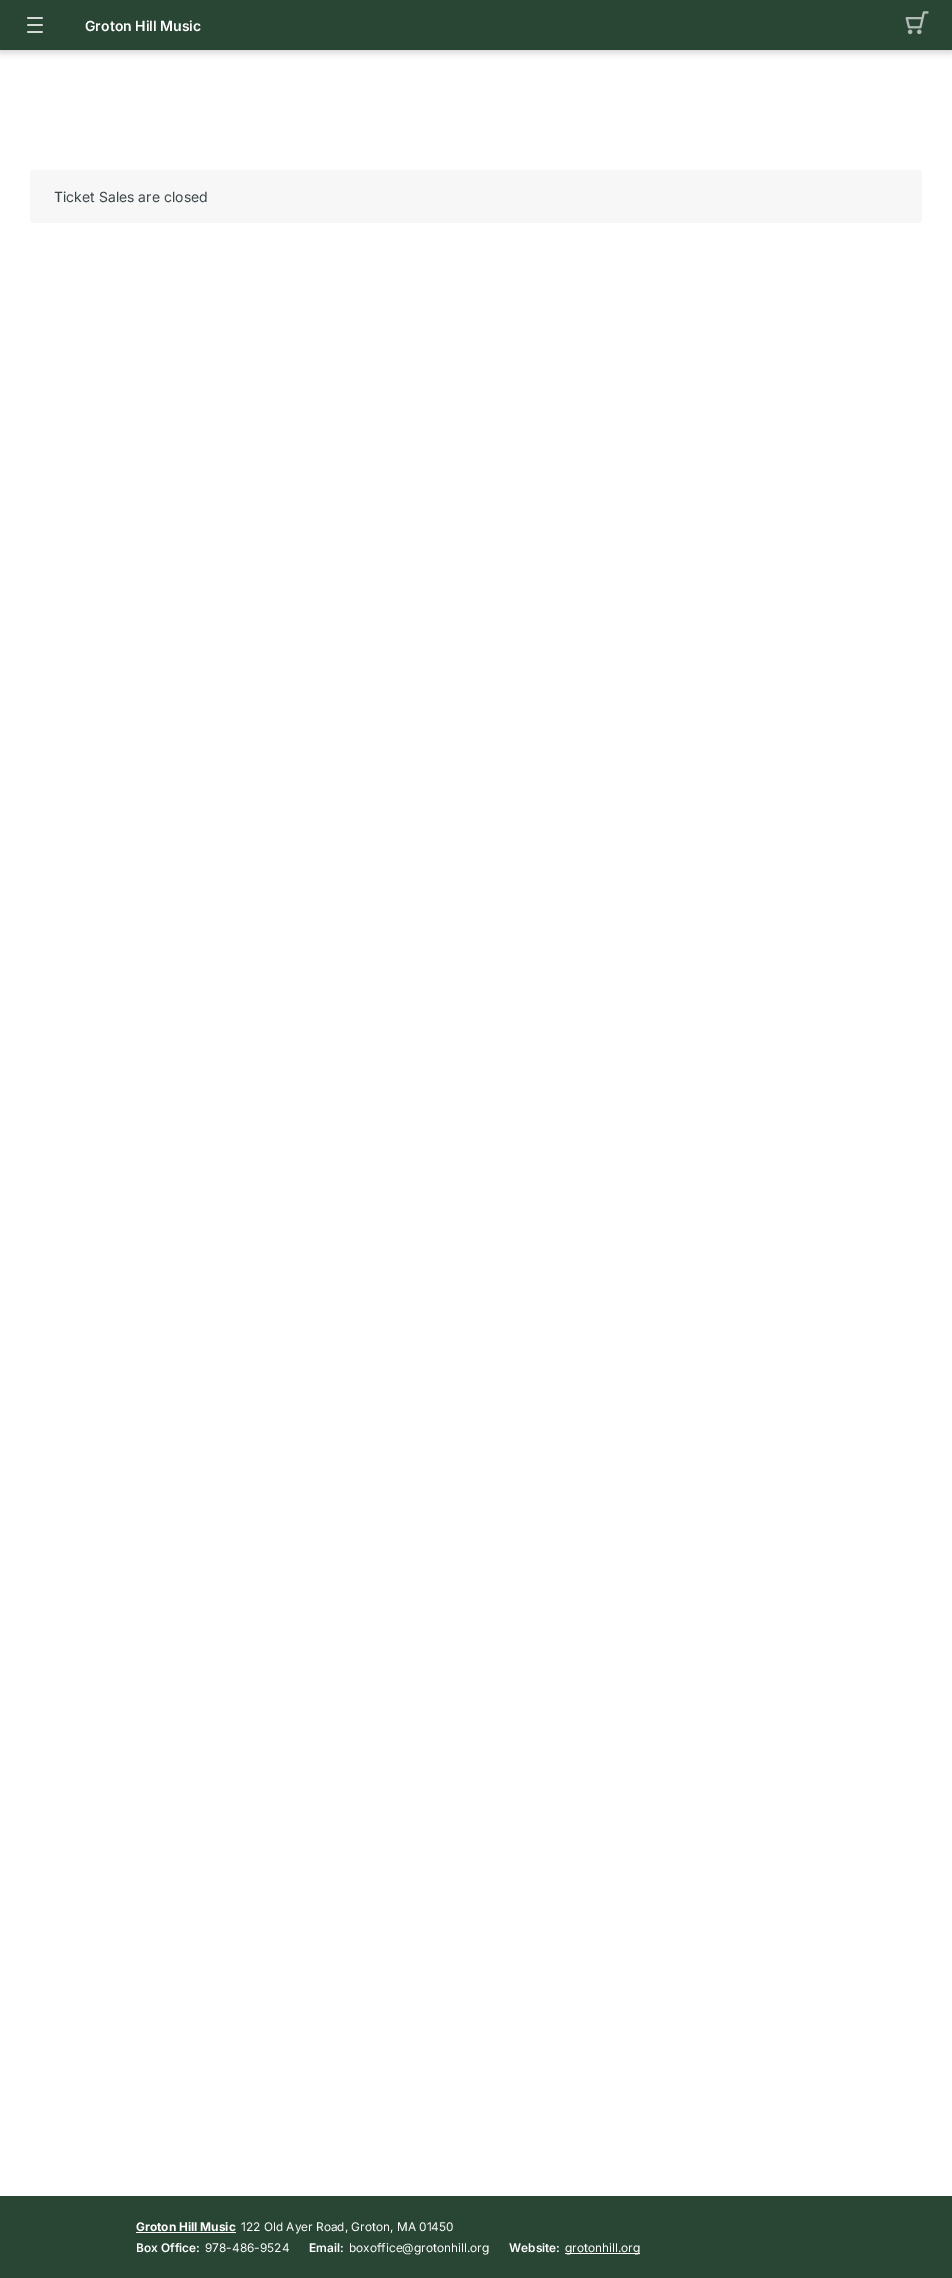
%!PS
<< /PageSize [952 2278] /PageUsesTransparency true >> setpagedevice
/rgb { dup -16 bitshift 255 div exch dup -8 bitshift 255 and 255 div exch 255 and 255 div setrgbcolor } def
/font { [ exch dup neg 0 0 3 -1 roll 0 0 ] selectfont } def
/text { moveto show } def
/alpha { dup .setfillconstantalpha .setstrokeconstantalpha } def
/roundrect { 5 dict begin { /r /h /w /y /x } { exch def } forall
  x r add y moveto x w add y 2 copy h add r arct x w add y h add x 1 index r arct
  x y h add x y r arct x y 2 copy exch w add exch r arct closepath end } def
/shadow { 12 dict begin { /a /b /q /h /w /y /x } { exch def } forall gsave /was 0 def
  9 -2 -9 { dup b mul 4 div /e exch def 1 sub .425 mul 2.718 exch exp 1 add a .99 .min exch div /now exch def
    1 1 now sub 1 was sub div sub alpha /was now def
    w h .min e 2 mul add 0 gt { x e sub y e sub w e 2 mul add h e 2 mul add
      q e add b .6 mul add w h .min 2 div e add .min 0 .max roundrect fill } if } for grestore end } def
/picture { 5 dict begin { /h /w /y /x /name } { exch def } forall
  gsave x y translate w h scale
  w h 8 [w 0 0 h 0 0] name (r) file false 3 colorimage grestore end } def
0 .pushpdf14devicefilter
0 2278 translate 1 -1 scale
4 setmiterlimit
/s1 { /Inter-SemiBold 14 font 16#FFFFFF rgb } def
/s2 { /Inter-Regular 14 font 16#3B454A rgb } def
/s3 { /Inter-Bold 11.9 font 16#FFFFFF rgb } def
/s4 { /Inter-Regular 11.9 font 16#FFFFFF rgb } def
/s5 { /Inter-SemiBold 11.9 font 16#FFFFFF rgb } def
16#FFFFFF rgb
0 0 952 2278 rectfill
16#000000 rgb
0 2 952 50 0 4 0.2 shadow
16#294635 rgb
0 0 952 50 rectfill
(pic1.raw) 27 17 16 16 picture
s1
(Groton Hill Music) 85 31 text
(pic2.raw) 905 11 24 24 picture
16#F7F7F7 rgb
30 170 892 53 3 roundrect fill
s2
(Ticket Sales are closed) 54 202 text
16#294635 rgb
0 2196 952 82 rectfill
s3
(Groton Hill Music) 136 2231 text
136 2232 100 1 rectfill
s4
(122 Old Ayer Road, Groton, MA 01450) 241 2231 text
s5
(Box Office:) 136 2252 text
s4
(978-486-9524) 205 2252 text
s5
(Email:) 309 2252 text
s4
(boxoffice@grotonhill.org) 349 2252 text
s5
(Website:) 509 2252 text
565 2253 75 1 rectfill
s4
(grotonhill.org) 565 2252 text
.poppdf14devicefilter showpage
